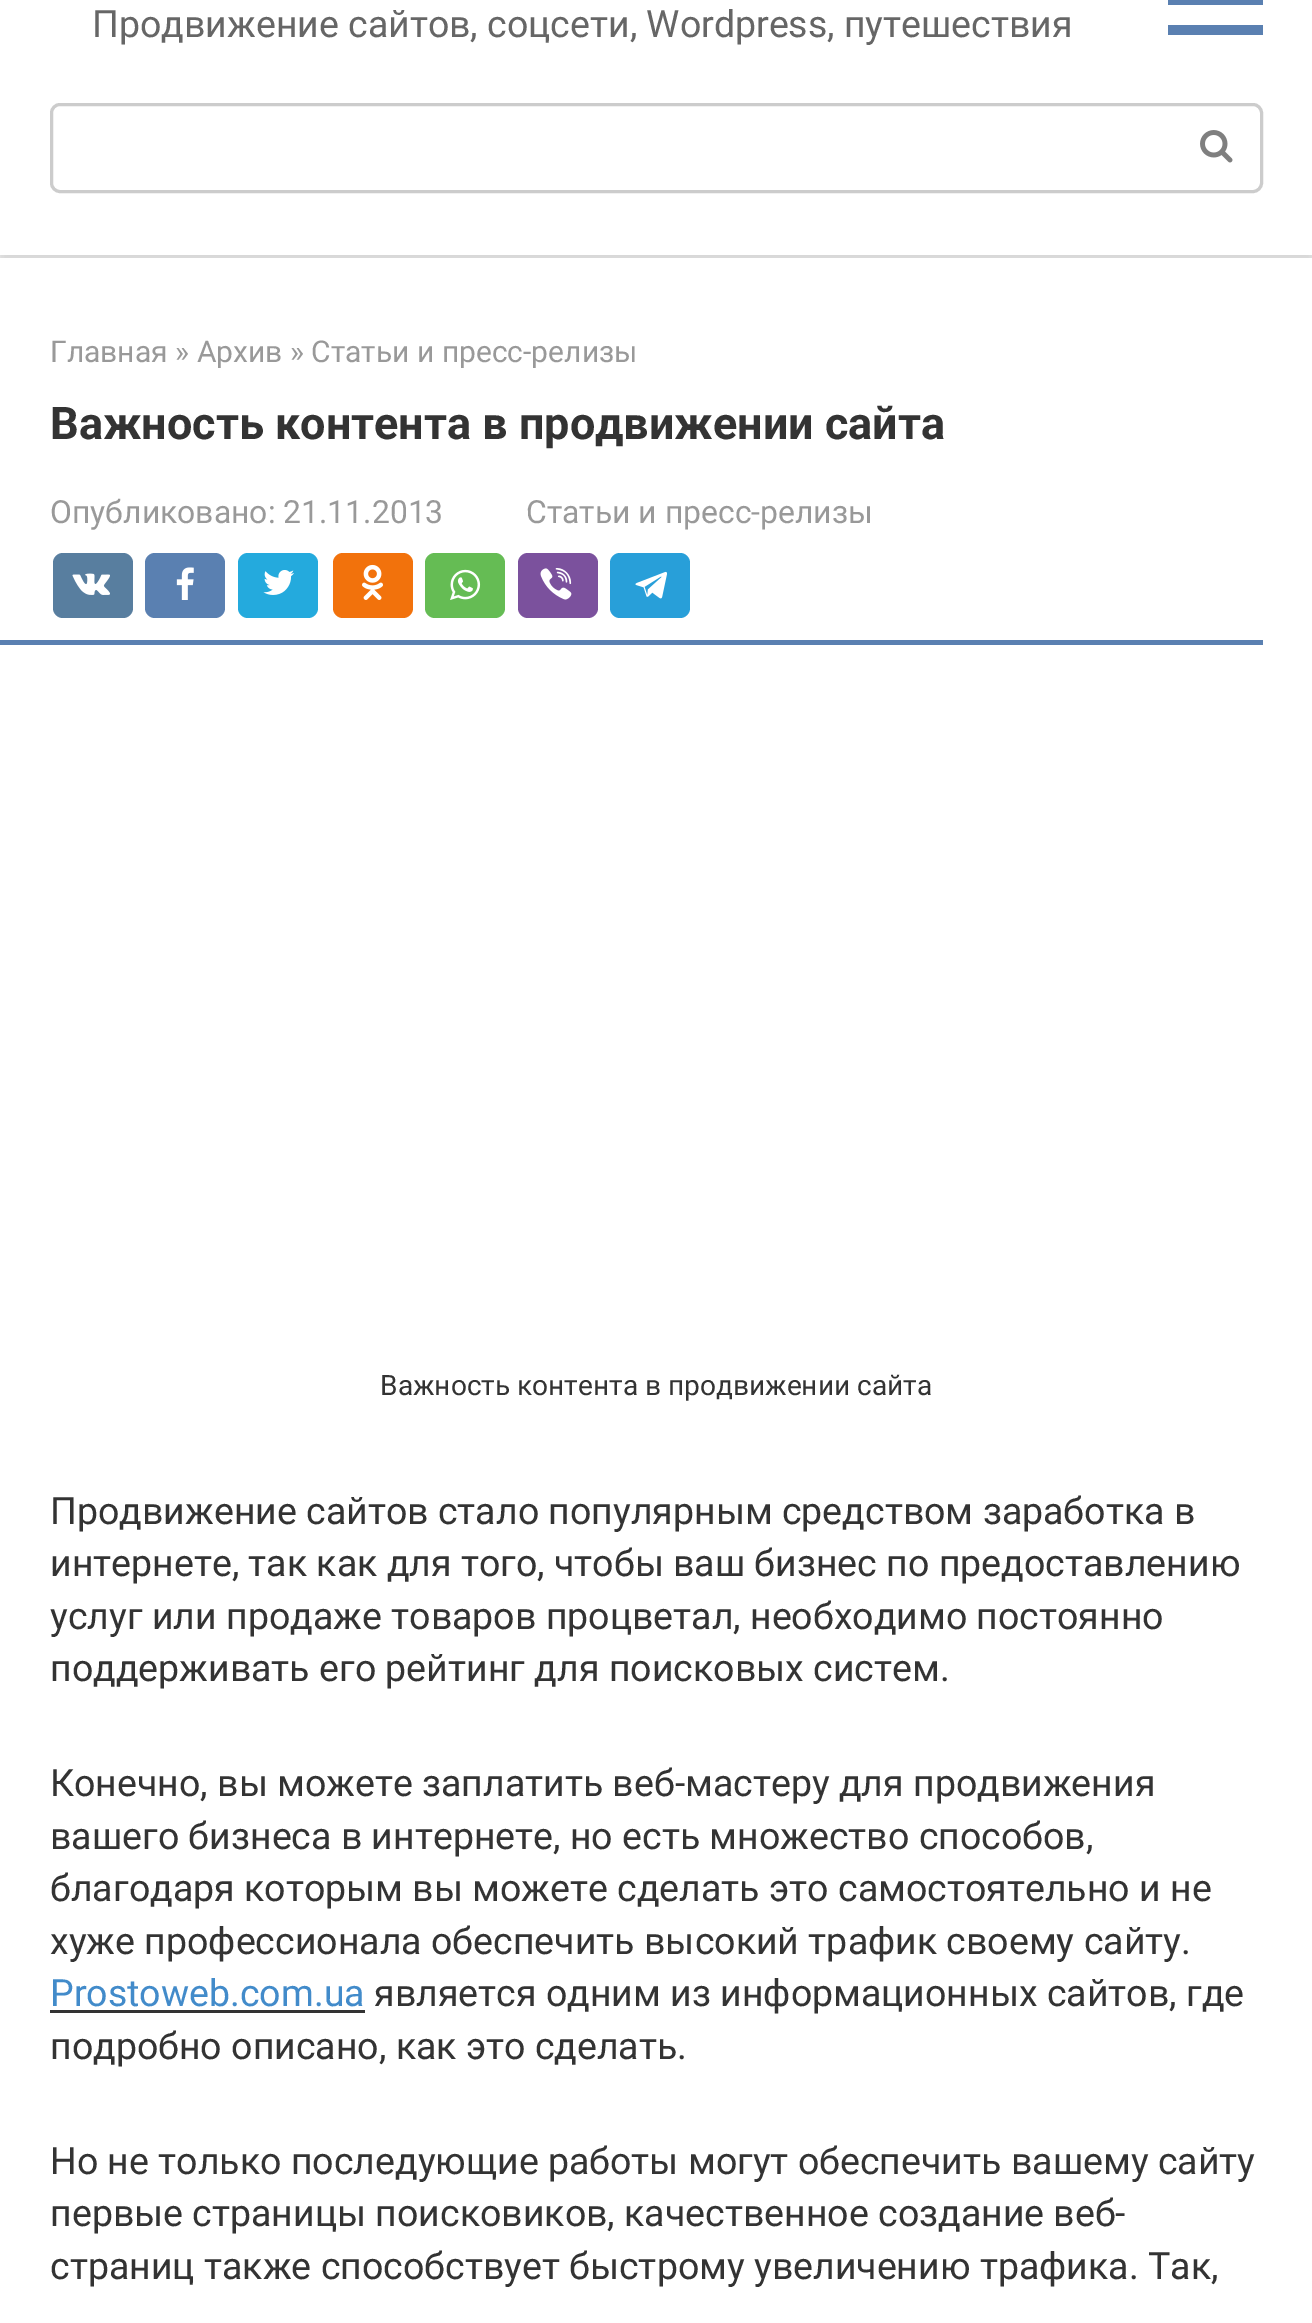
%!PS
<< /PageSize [1312 2323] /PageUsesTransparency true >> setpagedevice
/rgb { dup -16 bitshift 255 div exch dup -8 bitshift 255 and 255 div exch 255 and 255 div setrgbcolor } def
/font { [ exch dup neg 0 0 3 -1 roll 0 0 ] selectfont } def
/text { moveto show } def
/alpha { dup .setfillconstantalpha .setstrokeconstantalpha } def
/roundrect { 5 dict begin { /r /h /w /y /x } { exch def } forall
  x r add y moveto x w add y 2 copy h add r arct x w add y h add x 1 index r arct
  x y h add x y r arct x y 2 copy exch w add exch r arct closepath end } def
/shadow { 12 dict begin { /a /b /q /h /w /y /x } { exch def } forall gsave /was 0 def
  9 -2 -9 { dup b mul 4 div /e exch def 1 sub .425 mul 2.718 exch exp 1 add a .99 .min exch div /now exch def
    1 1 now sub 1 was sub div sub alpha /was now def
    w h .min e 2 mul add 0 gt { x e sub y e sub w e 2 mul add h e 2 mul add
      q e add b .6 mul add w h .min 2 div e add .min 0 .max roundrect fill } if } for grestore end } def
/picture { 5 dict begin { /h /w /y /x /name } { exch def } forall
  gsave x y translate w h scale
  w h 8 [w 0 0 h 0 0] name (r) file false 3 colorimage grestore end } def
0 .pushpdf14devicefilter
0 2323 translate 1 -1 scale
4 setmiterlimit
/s1 { /Roboto-Regular 37.5 font 16#666666 rgb } def
/s2 { /Roboto-Regular 30 font 16#999999 rgb } def
/s3 { /Roboto-Bold 45 font 16#333333 rgb } def
/s4 { /Roboto-Regular 31.9 font 16#999999 rgb } def
/s5 { /Roboto-Regular 28.1 font 16#333333 rgb } def
/s6 { /Roboto-Regular 37.5 font 16#333333 rgb } def
/s7 { /Roboto-Regular 37.5 font 16#428BCA rgb } def
16#ECECEC rgb
0 0 1312 2323 rectfill
16#000000 rgb
0 -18 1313 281 0 6 0.1 shadow
16#FFFFFF rgb
0 0 1312 255 rectfill
s1
(Продвижение сайтов, соцсети, Wordpress, путешествия) 92 37 text
16#5A80B1 rgb
1168 25 95 10 rectfill
1168 0 95 5 rectfill
16#CCCCCC rgb
3 setlinewidth
51.5 104.5 1210 87 8.5 roundrect stroke
(pic1.raw) 1200 130 33 33 picture
16#FFFFFF rgb
0 258 1312 2065 rectfill
s2
(Главная » Архив » Статьи и пресс-релизы) 50 362 text
s3
(Важность контента в продвижении сайта) 50 439 text
s4
(Опубликовано: 21.11.2013) 50 523 text
(Статьи и пресс-релизы) 526 523 text
16#587E9F rgb
53 553 80 65 10 roundrect fill
(pic2.raw) 72 573 38 22 picture
16#5A80B1 rgb
145 553 80 65 10 roundrect fill
(pic3.raw) 176 567 18 33 picture
16#24AADD rgb
238 553 80 65 10 roundrect fill
(pic4.raw) 263 570 31 25 picture
16#F2720C rgb
333 553 80 65 10 roundrect fill
(pic5.raw) 362 564 21 36 picture
16#65BC54 rgb
425 553 80 65 10 roundrect fill
(pic6.raw) 450 569 31 31 picture
16#7B519D rgb
518 553 80 65 10 roundrect fill
(pic7.raw) 540 568 32 32 picture
16#289FD9 rgb
610 553 80 65 10 roundrect fill
(pic8.raw) 635 571 32 28 picture
16#5A80B1 rgb
0 640 1263 5 rectfill
s5
(Важность контента в продвижении сайта) 380 1395 text
s6
(Продвижение сайтов стало популярным средством заработка в) 50 1524 text
(интернете, так как для того, чтобы ваш бизнес по предоставлению) 50 1576 text
(услуг или продаже товаров процветал, необходимо постоянно) 50 1629 text
(поддерживать его рейтинг для поисковых систем.) 50 1681 text
(Конечно, вы можете заплатить веб-мастеру для продвижения) 50 1796 text
(вашего бизнеса в интернете, но есть множество способов,) 50 1849 text
(благодаря которым вы можете сделать это самостоятельно и не) 50 1901 text
(хуже профессионала обеспечить высокий трафик своему сайту.) 50 1954 text
s7
(Prostoweb.com.ua) 50 2006 text
16#333333 rgb
50 2010 315 3 rectfill
(является одним из информационных сайтов, где) 374 2006 text
(подробно описано, как это сделать.) 50 2059 text
(Но не только последующие работы могут обеспечить вашему сайту) 50 2174 text
(первые страницы поисковиков, качественное создание веб-) 50 2226 text
(страниц также способствует быстрому увеличению трафика. Так,) 50 2279 text
.poppdf14devicefilter showpage
